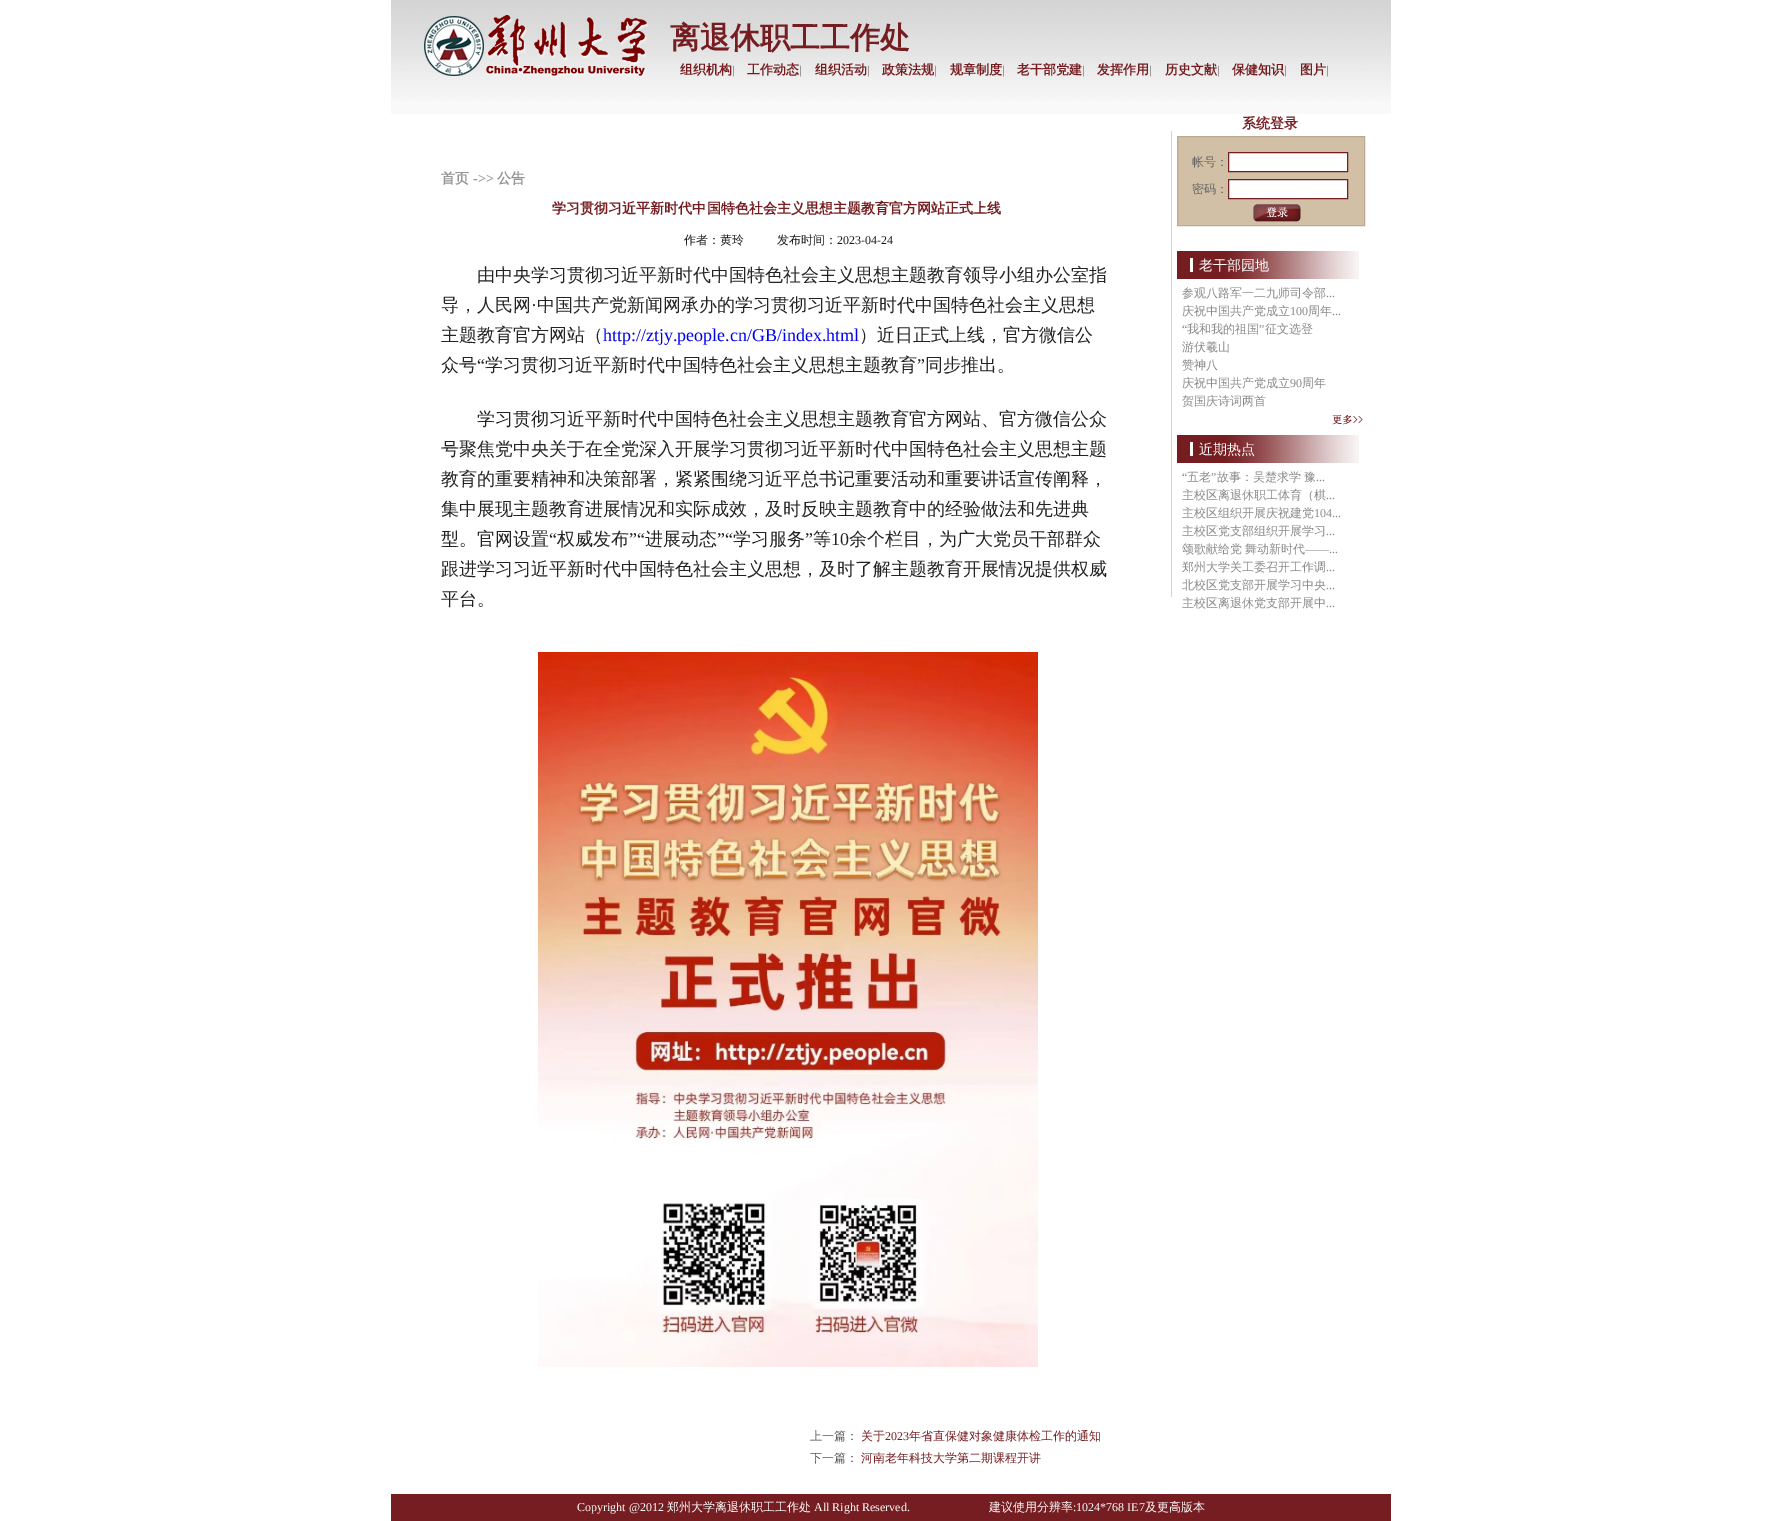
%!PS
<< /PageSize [1782 1521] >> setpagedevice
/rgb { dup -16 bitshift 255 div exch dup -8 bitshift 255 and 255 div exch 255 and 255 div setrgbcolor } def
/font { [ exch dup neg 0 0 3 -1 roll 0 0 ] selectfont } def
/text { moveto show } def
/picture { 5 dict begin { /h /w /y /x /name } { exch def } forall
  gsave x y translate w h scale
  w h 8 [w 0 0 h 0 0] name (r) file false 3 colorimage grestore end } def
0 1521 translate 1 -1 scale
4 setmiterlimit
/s1 { /WenQuanYiZenHei-Bold 30 font 16#761D21 rgb } def
/s2 { /WenQuanYiZenHei-Bold 13 font 16#761D21 rgb } def
/s3 { /LiberationSerif-Regular 12 font 16#555555 rgb } def
/s4 { /WenQuanYiZenHei-Bold 14 font 16#959595 rgb } def
/s5 { /LiberationSerif-Bold 14 font 16#959595 rgb } def
/s6 { /WenQuanYiZenHei-Bold 14.05 font 16#761D21 rgb } def
/s7 { /WenQuanYiZenHei-Medium 12 font 16#191918 rgb } def
/s8 { /LiberationSerif-Regular 12 font 16#191918 rgb } def
/s9 { /WenQuanYiZenHei-Medium 18 font 16#222222 rgb } def
/s10 { /LiberationSerif-Regular 18 font 16#222222 rgb } def
/s11 { /LiberationSerif-Regular 18 font 16#0000EE rgb } def
/s12 { /WenQuanYiZenHei-Medium 12 font 16#555555 rgb } def
/s13 { /WenQuanYiZenHei-Medium 12 font 16#761D21 rgb } def
/s14 { /LiberationSerif-Regular 12 font 16#761D21 rgb } def
/s15 { /WenQuanYiZenHei-Bold 14 font 16#761D21 rgb } def
/s16 { /WenQuanYiZenHei-Medium 12 font 16#646464 rgb } def
/s17 { /WenQuanYiZenHei-Medium 14.05 font 16#FFFFFF rgb } def
/s18 { /WenQuanYiZenHei-Medium 12 font 16#898989 rgb } def
/s19 { /LiberationSerif-Regular 12 font 16#898989 rgb } def
/s20 { /LiberationSerif-Regular 12 font 16#FFFFFF rgb } def
/s21 { /WenQuanYiZenHei-Medium 12 font 16#FFFFFF rgb } def
16#FFFFFF rgb
0 0 1782 1521 rectfill
(pic1.raw) 391 0 1000 101 picture
(pic2.raw) 424 15 224 63 picture
s1
(离退休职工工作处) 670 48 text
s2
(组织机构) 680 74 text
s3
(|) 732 74 text
s2
(工作动态) 747 74 text
s3
(|) 799 74 text
s2
(组织活动) 815 74 text
s3
(|) 867 74 text
s2
(政策法规) 882 74 text
s3
(|) 934 74 text
s2
(规章制度) 950 74 text
s3
(|) 1002 74 text
s2
(老干部党建) 1017 74 text
s3
(|) 1082 74 text
s2
(发挥作用) 1097 74 text
s3
(|) 1149 74 text
s2
(历史文献) 1165 74 text
s3
(|) 1217 74 text
s2
(保健知识) 1232 74 text
s3
(|) 1284 74 text
s2
(图片) 1300 74 text
s3
(|) 1326 74 text
16#F9F9F9 rgb
391 101 1000 13 rectfill
s4
(首页) 441 183 text
s5
(->>) 473 183 text
s4
(公告) 497 183 text
s6
(学习贯彻习近平新时代中国特色社会主义思想主题教育官方网站正式上线) 552 213 text
s7
(作者：黄玲) 684 244 text
(发布时间：) 777 244 text
s8
(2023-04-24) 837 244 text
s9
(由中央学习贯彻习近平新时代中国特色社会主义思想主题教育领导小组办公室指) 477 281 text
(导，人民网) 441 311 text
s10
(·) 531 311 text
s9
(中国共产党新闻网承办的学习贯彻习近平新时代中国特色社会主义思想) 537 311 text
(主题教育官方网站（) 441 341 text
s11
(http://ztjy.people.cn/GB/index.html) 603 341 text
s9
(）近日正式上线，官方微信公) 859 341 text
(众号) 441 371 text
s10
(“) 477 371 text
s9
(学习贯彻习近平新时代中国特色社会主义思想主题教育) 485 371 text
s10
(”) 917 371 text
s9
(同步推出。) 925 371 text
(学习贯彻习近平新时代中国特色社会主义思想主题教育官方网站、官方微信公众) 477 425 text
(号聚焦党中央关于在全党深入开展学习贯彻习近平新时代中国特色社会主义思想主题) 441 455 text
(教育的重要精神和决策部署，紧紧围绕习近平总书记重要活动和重要讲话宣传阐释，) 441 485 text
(集中展现主题教育进展情况和实际成效，及时反映主题教育中的经验做法和先进典) 441 515 text
(型。官网设置) 441 545 text
s10
(“) 549 545 text
s9
(权威发布) 557 545 text
s10
(”“) 629 545 text
s9
(进展动态) 645 545 text
s10
(”“) 717 545 text
s9
(学习服务) 733 545 text
s10
(”) 805 545 text
s9
(等) 813 545 text
s10
(10) 831 545 text
s9
(余个栏目，为广大党员干部群众) 849 545 text
(跟进学习习近平新时代中国特色社会主义思想，及时了解主题教育开展情况提供权威) 441 575 text
(平台。) 441 605 text
(pic3.raw) 538 652 500 715 picture
s12
(上一篇：) 810 1440 text
s13
(关于) 861 1440 text
s14
(2023) 885 1440 text
s13
(年省直保健对象健康体检工作的通知) 909 1440 text
s12
(下一篇：) 810 1462 text
s13
(河南老年科技大学第二期课程开讲) 861 1462 text
16#D3D3D3 rgb
1171 131 1 466 rectfill
s15
(系统登录) 1242 128 text
16#D1C0A5 rgb
1177.5 136.5 moveto 1364.5 136.5 lineto 1364.5 225.5 lineto 1177.5 225.5 lineto closepath gsave fill grestore
16#BBA990 rgb
stroke
s16
(帐号：) 1192 166 text
16#FFFFFF rgb
1228.5 152.5 moveto 1347.5 152.5 lineto 1347.5 171.5 lineto 1228.5 171.5 lineto closepath gsave fill grestore
16#761D21 rgb
stroke
s16
(密码：) 1192 193 text
16#FFFFFF rgb
1228.5 179.5 moveto 1347.5 179.5 lineto 1347.5 198.5 lineto 1228.5 198.5 lineto closepath gsave fill grestore
16#761D21 rgb
stroke
(pic4.raw) 1253 204 48 18 picture
(pic5.raw) 1177 251 182 28 picture
s17
(老干部园地) 1199 270 text
s18
(参观八路军一二九师司令部) 1182 297 text
s19
(...) 1326 297 text
s18
(庆祝中国共产党成立) 1182 315 text
s19
(100) 1290 315 text
s18
(周年) 1308 315 text
s19
(...) 1332 315 text
(“) 1182 333 text
s18
(我和我的祖国) 1187 333 text
s19
(”) 1259 333 text
s18
(征文选登) 1265 333 text
(游伏羲山) 1182 351 text
(赞神八) 1182 369 text
(庆祝中国共产党成立) 1182 387 text
s19
(90) 1290 387 text
s18
(周年) 1302 387 text
(贺国庆诗词两首) 1182 405 text
(pic6.raw) 1332 415 31 10 picture
(pic5.raw) 1177 435 182 28 picture
s17
(近期热点) 1199 454 text
s19
(“) 1182 481 text
s18
(五老) 1187 481 text
s19
(”) 1211 481 text
/WenQuanYiZenHei-Medium 12 font
1217 481 moveto -1 0 32 (故事：吴楚求学 豫) widthshow
s19
(...) 1316 481 text
s18
(主校区离退休职工体育（棋) 1182 499 text
s19
(...) 1326 499 text
s18
(主校区组织开展庆祝建党) 1182 517 text
s19
(104...) 1314 517 text
s18
(主校区党支部组织开展学习) 1182 535 text
s19
(...) 1326 535 text
/WenQuanYiZenHei-Medium 12 font
1182 553 moveto -1 0 32 (颂歌献给党 舞动新时代) widthshow
s19
(——...) 1305 553 text
s18
(郑州大学关工委召开工作调) 1182 571 text
s19
(...) 1326 571 text
s18
(北校区党支部开展学习中央) 1182 589 text
s19
(...) 1326 589 text
s18
(主校区离退休党支部开展中) 1182 607 text
s19
(...) 1326 607 text
16#761D21 rgb
391 1494 1000 27 rectfill
s20
(Copyright @2012) 577 1511 text
s21
(郑州大学离退休职工工作处) 667 1511 text
s20
(All Right Reserved.) 814 1511 text
s21
(建议使用分辨率) 989 1511 text
s20
(:1024*768 IE7) 1073 1511 text
s21
(及更高版本) 1145 1511 text
showpage
